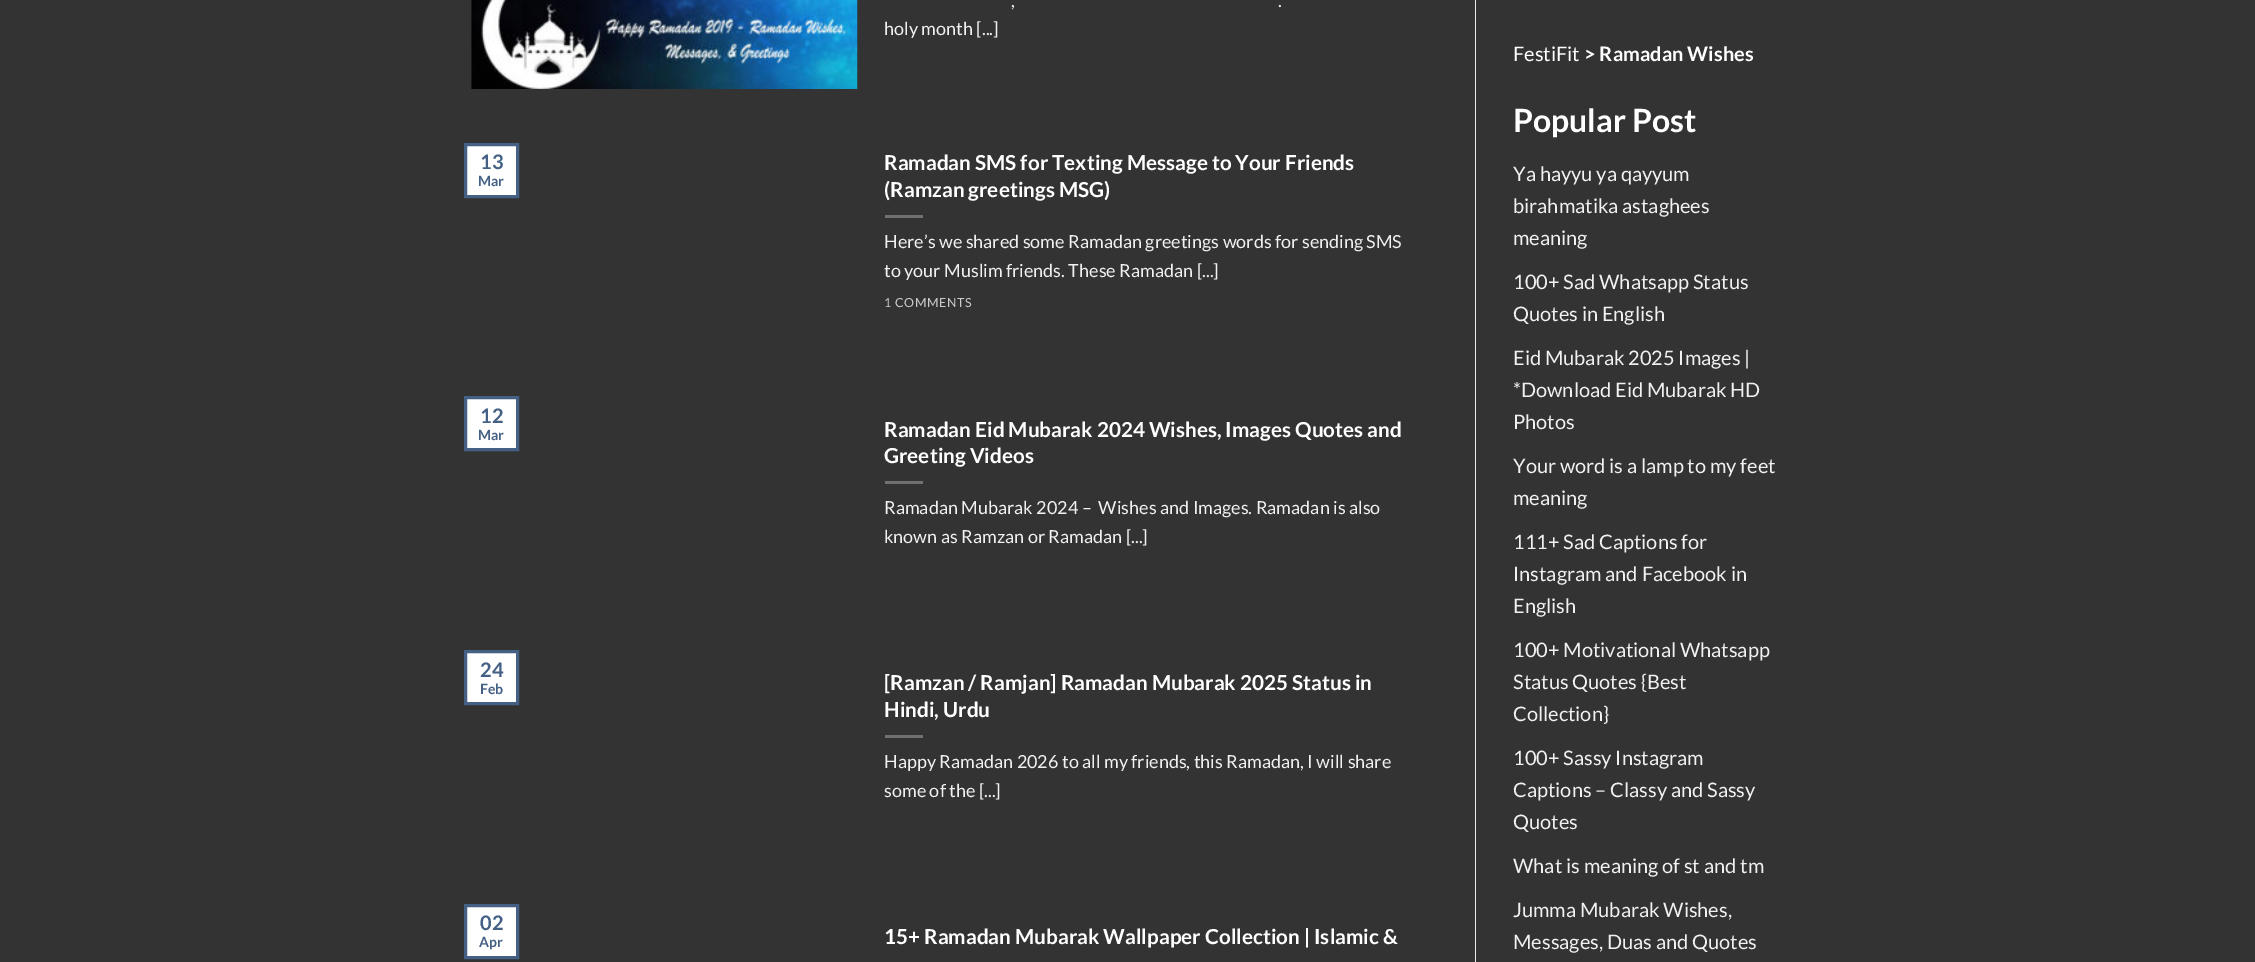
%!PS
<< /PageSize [2255 962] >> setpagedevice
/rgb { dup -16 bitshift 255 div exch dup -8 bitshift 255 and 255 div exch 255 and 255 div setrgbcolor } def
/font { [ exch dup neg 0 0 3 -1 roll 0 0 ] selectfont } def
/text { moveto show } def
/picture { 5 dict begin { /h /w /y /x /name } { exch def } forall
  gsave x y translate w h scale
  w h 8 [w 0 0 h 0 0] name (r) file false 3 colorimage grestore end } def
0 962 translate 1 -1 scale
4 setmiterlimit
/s1 { /Lato-Regular 18 font 16#F1F1F1 rgb } def
/s2 { /Lato-Bold 20 font 16#446084 rgb } def
/s3 { /Lato-Bold 14 font 16#446084 rgb } def
/s4 { /Lato-Bold 20.7 font 16#FFFFFF rgb } def
/s5 { /Lato-Regular 20 font 16#FFFFFF rgb } def
/s6 { /Lato-Bold 20 font 16#FFFFFF rgb } def
/s7 { /Lato-Bold 32 font 16#FFFFFF rgb } def
/s8 { /Lato-Regular 20 font 16#F1F1F1 rgb } def
16#333333 rgb
0 0 2255 962 rectfill
(pic1.raw) 471 0 387 89 picture
s1
(,) 1011 7 text
(.) 1278 7 text
(holy month [...]) 884 35 text
16#FFFFFF rgb
465.5 144.5 moveto 517.5 144.5 lineto 517.5 196.5 lineto 465.5 196.5 lineto closepath gsave fill grestore
16#446084 rgb
3 setlinewidth
stroke
s2
(13) 480 169 text
s3
(Mar) 478 186 text
s4
(Ramadan SMS for Texting Message to Your Friends) 884 170 text
(\(Ramzan greetings MSG\)) 884 197 text
16#707070 rgb
885 215 38 3 rectfill
s1
(Here’s we shared some Ramadan greetings words for sending SMS) 884 248 text
(to your Muslim friends. These Ramadan [...]) 884 277 text
/Lato-Regular 12.5 font
16#CBCBCB rgb
884 307 moveto 0.6 0 (1 COMMENTS) ashow
16#FFFFFF rgb
465.5 397.5 moveto 517.5 397.5 lineto 517.5 449.5 lineto 465.5 449.5 lineto closepath gsave fill grestore
16#446084 rgb
stroke
s2
(12) 480 423 text
s3
(Mar) 478 440 text
s4
(Ramadan Eid Mubarak 2024 Wishes, Images Quotes and) 884 437 text
(Greeting Videos) 884 463 text
16#707070 rgb
885 481 38 3 rectfill
s1
(Ramadan Mubarak 2024 –  Wishes and Images. Ramadan is also) 884 514 text
(known as Ramzan or Ramadan [...]) 884 543 text
16#FFFFFF rgb
465.5 651.5 moveto 517.5 651.5 lineto 517.5 703.5 lineto 465.5 703.5 lineto closepath gsave fill grestore
16#446084 rgb
stroke
s2
(24) 480 677 text
s3
(Feb) 480 694 text
s4
([Ramzan / Ramjan] Ramadan Mubarak 2025 Status in) 884 690 text
(Hindi, Urdu) 884 717 text
16#707070 rgb
885 735 38 3 rectfill
s1
(Happy Ramadan 2026 to all my friends, this Ramadan, I will share) 884 768 text
(some of the [...]) 884 797 text
16#FFFFFF rgb
465.5 905.5 moveto 517.5 905.5 lineto 517.5 957.5 lineto 465.5 957.5 lineto closepath gsave fill grestore
16#446084 rgb
stroke
s2
(02) 480 930 text
s3
(Apr) 479 947 text
s4
(15+ Ramadan Mubarak Wallpaper Collection | Islamic &) 884 944 text
16#ECECEC rgb
1475 0 1 962 rectfill
s5
(FestiFit) 1513 61 text
s6
(> Ramadan Wishes) 1584 61 text
s7
(Popular Post) 1513 132 text
s8
(Ya hayyu ya qayyum) 1513 181 text
(birahmatika astaghees) 1513 213 text
(meaning) 1513 245 text
(100+ Sad Whatsapp Status) 1513 289 text
(Quotes in English) 1513 321 text
(Eid Mubarak 2025 Images |) 1513 365 text
(*Download Eid Mubarak HD) 1513 397 text
(Photos) 1513 429 text
(Your word is a lamp to my feet) 1513 473 text
(meaning) 1513 505 text
(111+ Sad Captions for) 1513 549 text
(Instagram and Facebook in) 1513 581 text
(English) 1513 613 text
(100+ Motivational Whatsapp) 1513 657 text
(Status Quotes {Best) 1513 689 text
(Collection}) 1513 721 text
(100+ Sassy Instagram) 1513 765 text
(Captions – Classy and Sassy) 1513 797 text
(Quotes) 1513 829 text
(What is meaning of st and tm) 1513 873 text
(Jumma Mubarak Wishes,) 1513 917 text
(Messages, Duas and Quotes) 1513 949 text
showpage
